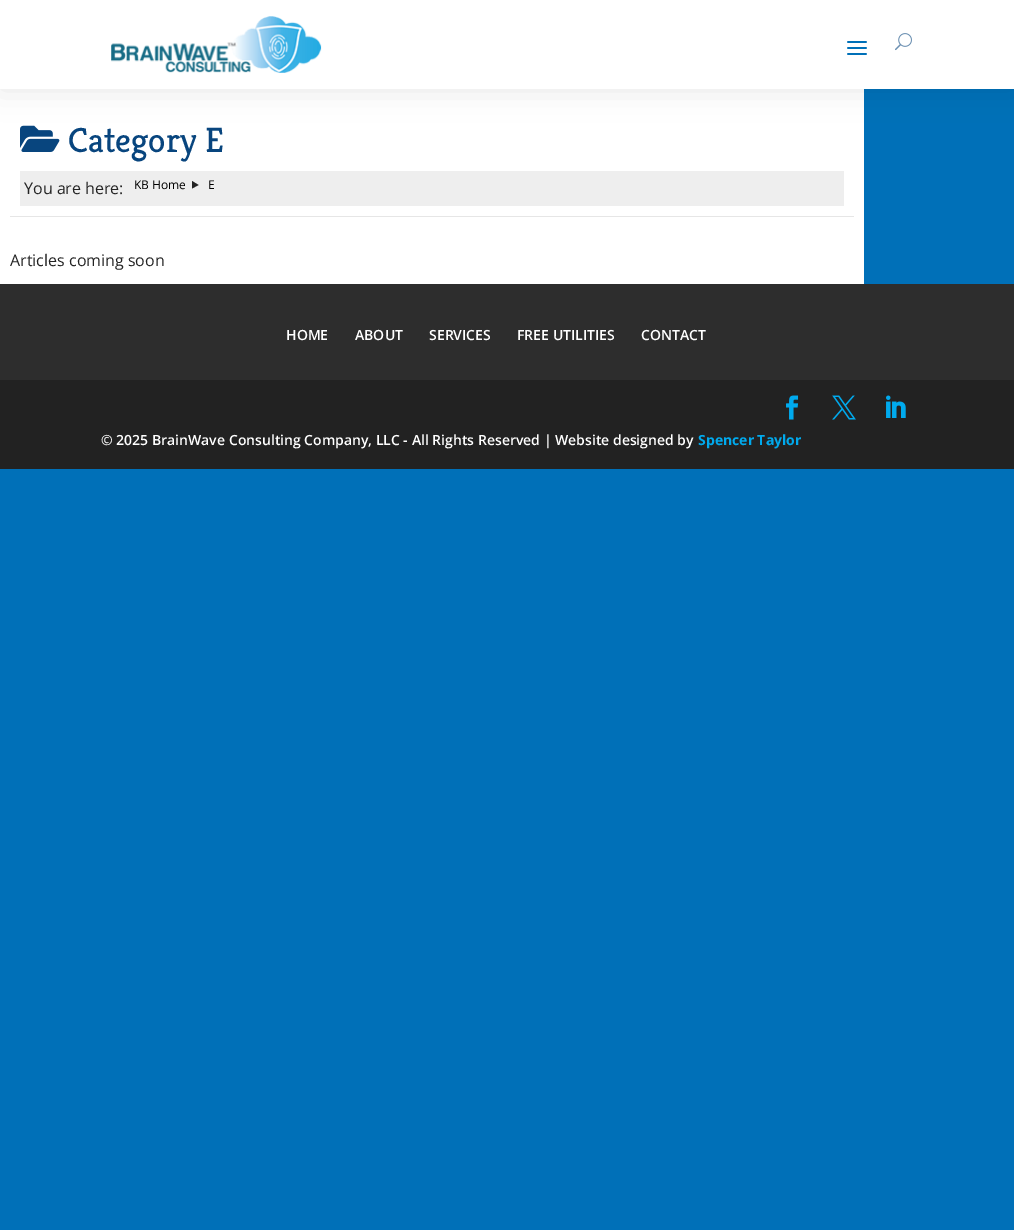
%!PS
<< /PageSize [1014 1230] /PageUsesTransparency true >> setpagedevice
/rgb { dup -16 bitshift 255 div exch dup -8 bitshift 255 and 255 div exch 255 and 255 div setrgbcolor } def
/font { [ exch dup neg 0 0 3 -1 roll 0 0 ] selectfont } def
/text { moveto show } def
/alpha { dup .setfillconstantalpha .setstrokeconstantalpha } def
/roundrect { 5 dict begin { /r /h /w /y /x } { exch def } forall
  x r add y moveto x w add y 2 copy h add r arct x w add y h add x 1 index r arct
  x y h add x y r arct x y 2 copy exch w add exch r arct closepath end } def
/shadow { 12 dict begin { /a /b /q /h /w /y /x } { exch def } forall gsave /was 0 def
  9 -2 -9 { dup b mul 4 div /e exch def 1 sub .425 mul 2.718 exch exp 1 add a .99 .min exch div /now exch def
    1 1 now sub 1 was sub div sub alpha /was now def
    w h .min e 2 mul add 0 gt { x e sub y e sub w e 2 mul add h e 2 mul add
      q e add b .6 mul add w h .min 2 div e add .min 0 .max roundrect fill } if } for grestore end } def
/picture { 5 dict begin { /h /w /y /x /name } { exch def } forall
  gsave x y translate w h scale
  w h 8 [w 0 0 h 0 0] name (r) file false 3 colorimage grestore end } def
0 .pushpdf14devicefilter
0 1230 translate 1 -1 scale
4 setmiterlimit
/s1 { /Kreon-Regular 35 font 16#08457E rgb } def
/s2 { /OpenSans-Regular 16 font 16#232323 rgb } def
/s3 { /OpenSans-Regular 12 font 16#000000 rgb } def
/s4 { /OpenSans-SemiBold 14 font 16#FFFFFF rgb } def
/s5 { /OpenSans-Bold 14 font 16#00AAEE rgb } def
16#0070B8 rgb
0 0 1014 1230 rectfill
16#FFFFFF rgb
0 89 864 195 rectfill
(pic4.raw) 20 125 40 27 picture
16#000000 rgb
0 0 1014 89 0 15 0.1 shadow
16#FFFFFF rgb
0 0 1014 89 rectfill
(pic1.raw) 111 16 211 57 picture
(pic2.raw) 847 41 20 14 picture
(pic3.raw) 895 33 17 18 picture
16#E6E6E6 rgb
10 216 844 1 rectfill
s1
(Category E) 68 152 text
16#EEEEEE rgb
20 171 824 35 rectfill
s2
(You are here:) 24 194 text
s3
(KB Home) 134 189 text
16#232323 rgb
192 181 moveto 198.5 185 lineto 192 188.5 lineto closepath fill
s3
(E) 208 189 text
s2
(Articles coming soon) 10 266 text
16#222222 rgb
0 380 1014 89 rectfill
16#2D2D2D rgb
0 284 1014 96 rectfill
s4
(HOME) 286 340 text
(ABOUT) 355 340 text
(SERVICES) 429 340 text
(FREE UTILITIES) 517 340 text
(CONTACT) 641 340 text
(pic5.raw) 786 395 13 25 picture
(pic6.raw) 832 395 24 25 picture
(pic7.raw) 886 395 20 23 picture
(© 2025 BrainWave Consulting Company, LLC - All Rights Reserved | Website designed by) 101 445 text
s5
(Spencer Taylor) 698 445 text
.poppdf14devicefilter showpage
